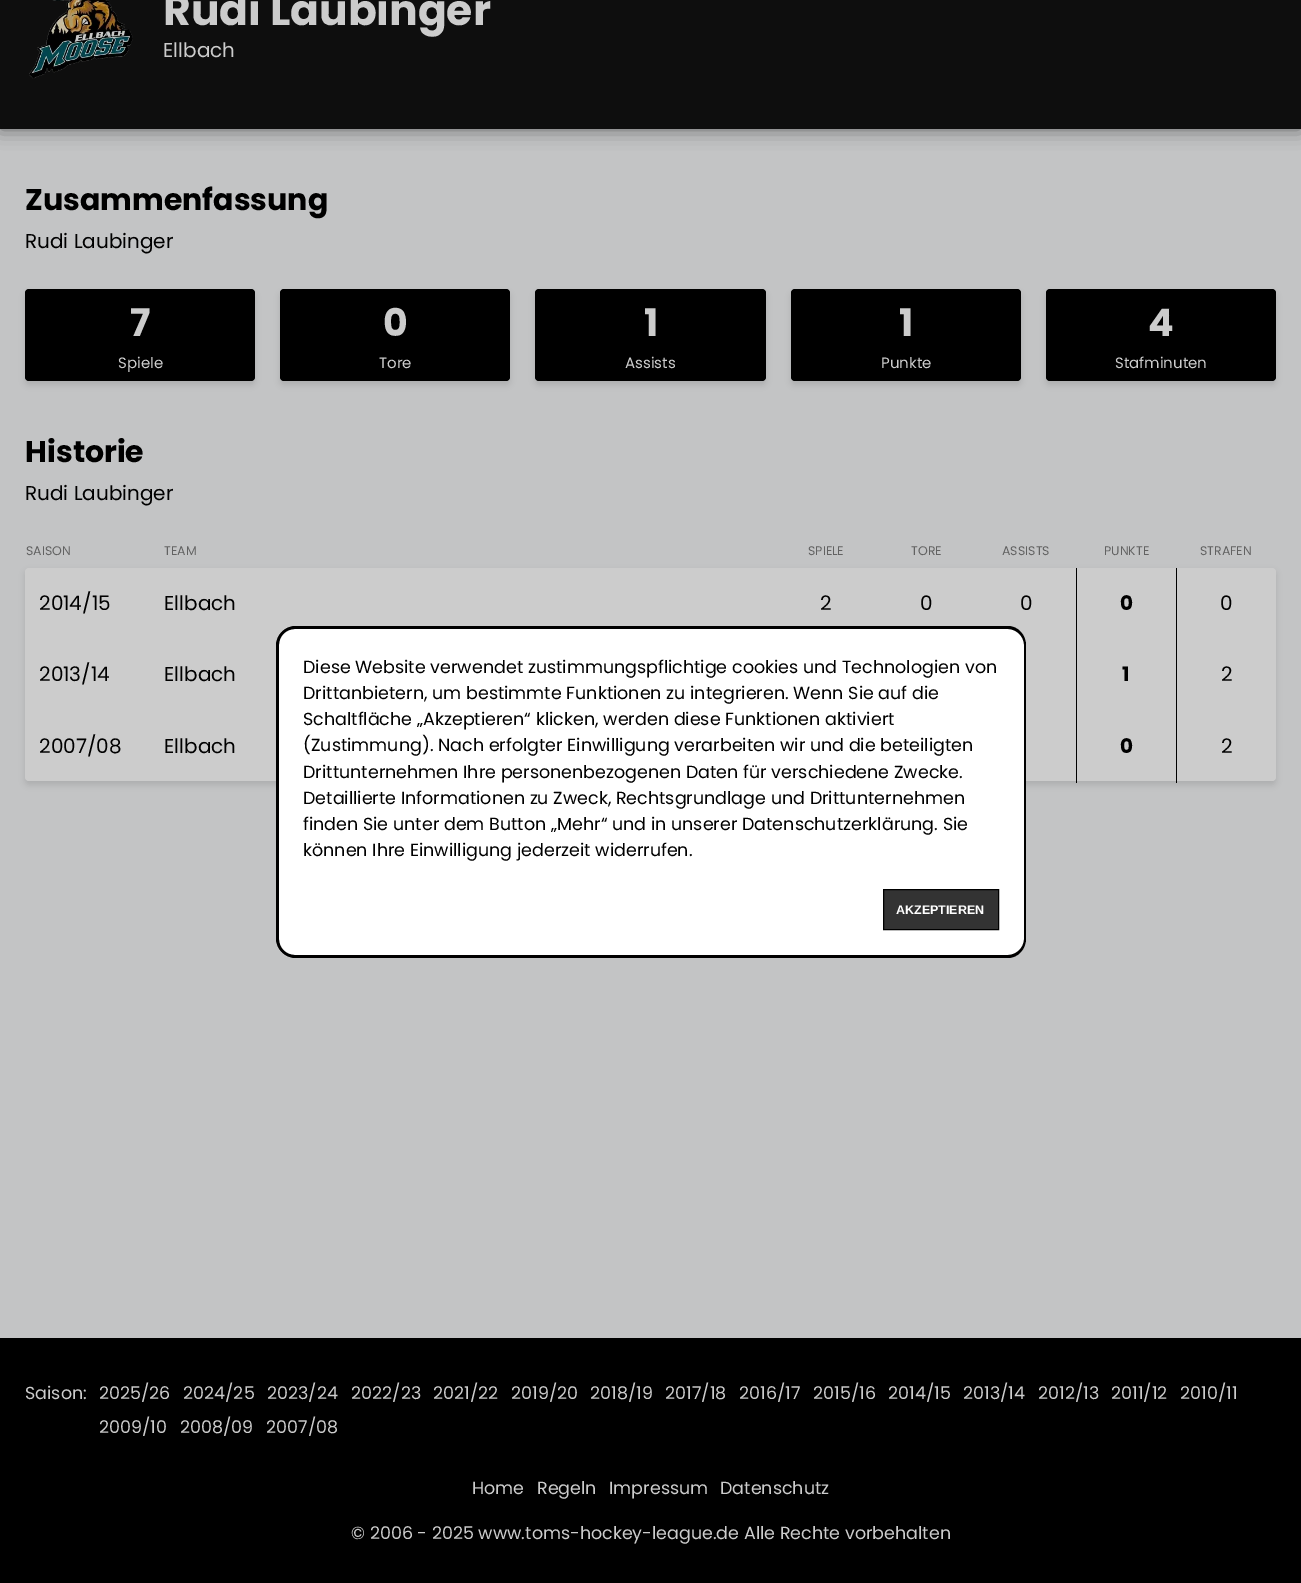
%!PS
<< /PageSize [1301 1583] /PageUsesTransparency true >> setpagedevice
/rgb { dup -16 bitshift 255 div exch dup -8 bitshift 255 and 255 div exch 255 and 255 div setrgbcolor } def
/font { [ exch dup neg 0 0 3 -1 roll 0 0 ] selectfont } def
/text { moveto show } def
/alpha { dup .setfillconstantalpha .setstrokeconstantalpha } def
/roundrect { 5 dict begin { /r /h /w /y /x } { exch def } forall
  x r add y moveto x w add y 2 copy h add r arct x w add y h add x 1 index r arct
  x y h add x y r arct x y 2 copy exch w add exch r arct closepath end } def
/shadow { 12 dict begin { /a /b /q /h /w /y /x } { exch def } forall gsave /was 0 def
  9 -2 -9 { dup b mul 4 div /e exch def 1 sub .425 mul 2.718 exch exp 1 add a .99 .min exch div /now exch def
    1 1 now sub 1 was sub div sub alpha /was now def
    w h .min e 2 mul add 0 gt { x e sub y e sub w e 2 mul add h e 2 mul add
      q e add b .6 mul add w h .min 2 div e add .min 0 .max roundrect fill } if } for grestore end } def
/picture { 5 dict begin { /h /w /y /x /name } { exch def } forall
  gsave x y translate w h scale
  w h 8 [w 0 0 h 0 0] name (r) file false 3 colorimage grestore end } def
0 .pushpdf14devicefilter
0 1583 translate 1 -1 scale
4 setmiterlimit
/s1 { /Poppins-Bold 42.5 font 16#CCCCCC rgb } def
/s2 { /Poppins-Regular 20 font 16#CCCCCC rgb } def
/s3 { /Poppins-Bold 30 font 16#000000 rgb } def
/s4 { /Poppins-Regular 20 font 16#000000 rgb } def
/s5 { /Poppins-Bold 38 font 16#CCCCCC rgb } def
/s6 { /Poppins-Regular 15 font 16#CCCCCC rgb } def
/s7 { /Poppins-Regular 12.5 font 16#626262 rgb } def
/s8 { /Poppins-Bold 20 font 16#000000 rgb } def
/s9 { /Poppins-Regular 17.5 font 16#000000 rgb } def
/s10 { /LiberationSans-Bold 12.5 font 16#FFFFFF rgb } def
/s11 { /Poppins-Regular 17.5 font 16#CCCCCC rgb } def
16#000000 rgb
0 0 1301 1583 rectfill
16#C3C4C5 rgb
0 129 1301 1209 rectfill
16#000000 rgb
0 -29 1301 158 0 9.5 0.5 shadow
16#0E0E0E rgb
0 0 1301 129 rectfill
(pic1.raw) 29 0 104 79 picture
s1
(Rudi Laubinger) 163 25 text
s2
(Ellbach) 163 57 text
s3
(Zusammenfassung) 25 210 text
s4
(Rudi Laubinger) 25 248 text
25 293 230 92 4 3 0.1 shadow
25 289 230 92 4 roundrect fill
s5
(7) 130 336 text
s6
(Spiele) 118 368 text
16#000000 rgb
280 293 230 92 4 3 0.1 shadow
280 289 230 92 4 roundrect fill
s5
(0) 383 336 text
s6
(Tore) 379 368 text
16#000000 rgb
535 293 231 92 4 3 0.1 shadow
535 289 231 92 4 roundrect fill
s5
(1) 644 336 text
s6
(Assists) 625 368 text
16#000000 rgb
791 293 230 92 4 3 0.1 shadow
791 289 230 92 4 roundrect fill
s5
(1) 899 336 text
s6
(Punkte) 881 368 text
16#000000 rgb
1046 293 230 92 4 3 0.1 shadow
1046 289 230 92 4 roundrect fill
s5
(4) 1148 336 text
s6
(Stafminuten) 1115 368 text
s3
(Historie) 25 462 text
s4
(Rudi Laubinger) 25 500 text
s7
(SAISON) 26 555 text
(TEAM) 164 555 text
(SPIELE) 808 555 text
(TORE) 911 555 text
(ASSISTS) 1002 555 text
(PUNKTE) 1104 555 text
(STRAFEN) 1200 555 text
16#000000 rgb
25 571 1251 214 4 3 0.1 shadow
16#CCCCCC rgb
25 568 1251 213 4 roundrect fill
s4
(2014/15) 39 610 text
(Ellbach) 164 610 text
(2) 820 610 text
(0) 920 610 text
(0) 1020 610 text
s8
(0) 1120 610 text
s4
(0) 1220 610 text
(2013/14) 39 681 text
(Ellbach) 164 681 text
s8
(1) 1122 681 text
s4
(2) 1221 681 text
(2007/08) 39 753 text
(Ellbach) 164 753 text
1176 568 1 215 rectfill
1076 568 1 215 rectfill
s8
(0) 1120 753 text
s4
(2) 1221 753 text
16#FFFFFF rgb
295 626 moveto 1007 626 lineto 1017.5 626 1026 634.5 1026 645 curveto 1026 889 lineto 276 889 lineto 276 645 lineto 276 634.5 284.5 626 295 626 curveto closepath fill
16#000000 rgb
295 626 moveto 1008 626 lineto 1018 626 1026 635 1026 645 curveto 1026 889 lineto 276 889 lineto 276 645 lineto 276 635 285 626 295 626 curveto closepath 295 629 moveto 1008 629 lineto 1016 629 1024 636 1024 645 curveto 1024 889 lineto 279 889 lineto 279 645 lineto 279 636 286 629 295 629 curveto closepath eofill
s9
(Diese Website verwendet zustimmungspflichtige cookies und Technologien von) 303 673 text
(Drittanbietern, um bestimmte Funktionen zu integrieren. Wenn Sie auf die) 303 699 text
(Schaltfläche „Akzeptieren“ klicken, werden diese Funktionen aktiviert) 303 725 text
(\(Zustimmung\). Nach erfolgter Einwilligung verarbeiten wir und die beteiligten) 303 751 text
(Drittunternehmen Ihre personenbezogenen Daten für verschiedene Zwecke.) 303 778 text
(Detaillierte Informationen zu Zweck, Rechtsgrundlage und Drittunternehmen) 303 804 text
(finden Sie unter dem Button „Mehr“ und in unserer Datenschutzerklärung. Sie) 303 830 text
(können Ihre Einwilligung jederzeit widerrufen.) 303 856 text
16#FFFFFF rgb
276 889 moveto 1026 889 lineto 1026 939 lineto 1026 949.5 1017.5 958 1007 958 curveto 295 958 lineto 284.5 958 276 949.5 276 939 curveto closepath fill
16#000000 rgb
276 889 moveto 1026 889 lineto 1026 939 lineto 1026 949 1018 958 1008 958 curveto 295 958 lineto 285 958 276 949 276 939 curveto closepath 279 889 moveto 1024 889 lineto 1024 939 lineto 1024 948 1016 955 1008 955 curveto 295 955 lineto 286 955 279 948 279 939 curveto closepath eofill
16#333333 rgb
883.5 889.5 moveto 998.5 889.5 lineto 998.5 929.5 lineto 883.5 929.5 lineto closepath gsave fill grestore
16#000000 rgb
stroke
s10
(AKZEPTIEREN) 896 914 text
s11
(Saison:) 25 1399 text
(2025/26) 99 1399 text
(2024/25) 183 1399 text
(2023/24) 267 1399 text
(2022/23) 351 1399 text
(2021/22) 433 1399 text
(2019/20) 511 1399 text
(2018/19) 590 1399 text
(2017/18) 665 1399 text
(2016/17) 739 1399 text
(2015/16) 813 1399 text
(2014/15) 888 1399 text
(2013/14) 963 1399 text
(2012/13) 1038 1399 text
(2011/12) 1111 1399 text
(2010/11) 1180 1399 text
(2009/10) 99 1433 text
(2008/09) 180 1433 text
(2007/08) 266 1433 text
(Home) 472 1494 text
(Regeln) 537 1494 text
(Impressum) 609 1494 text
(Datenschutz) 720 1494 text
(© 2006 - 2025 www.toms-hockey-league.de Alle Rechte vorbehalten) 351 1539 text
.poppdf14devicefilter showpage
